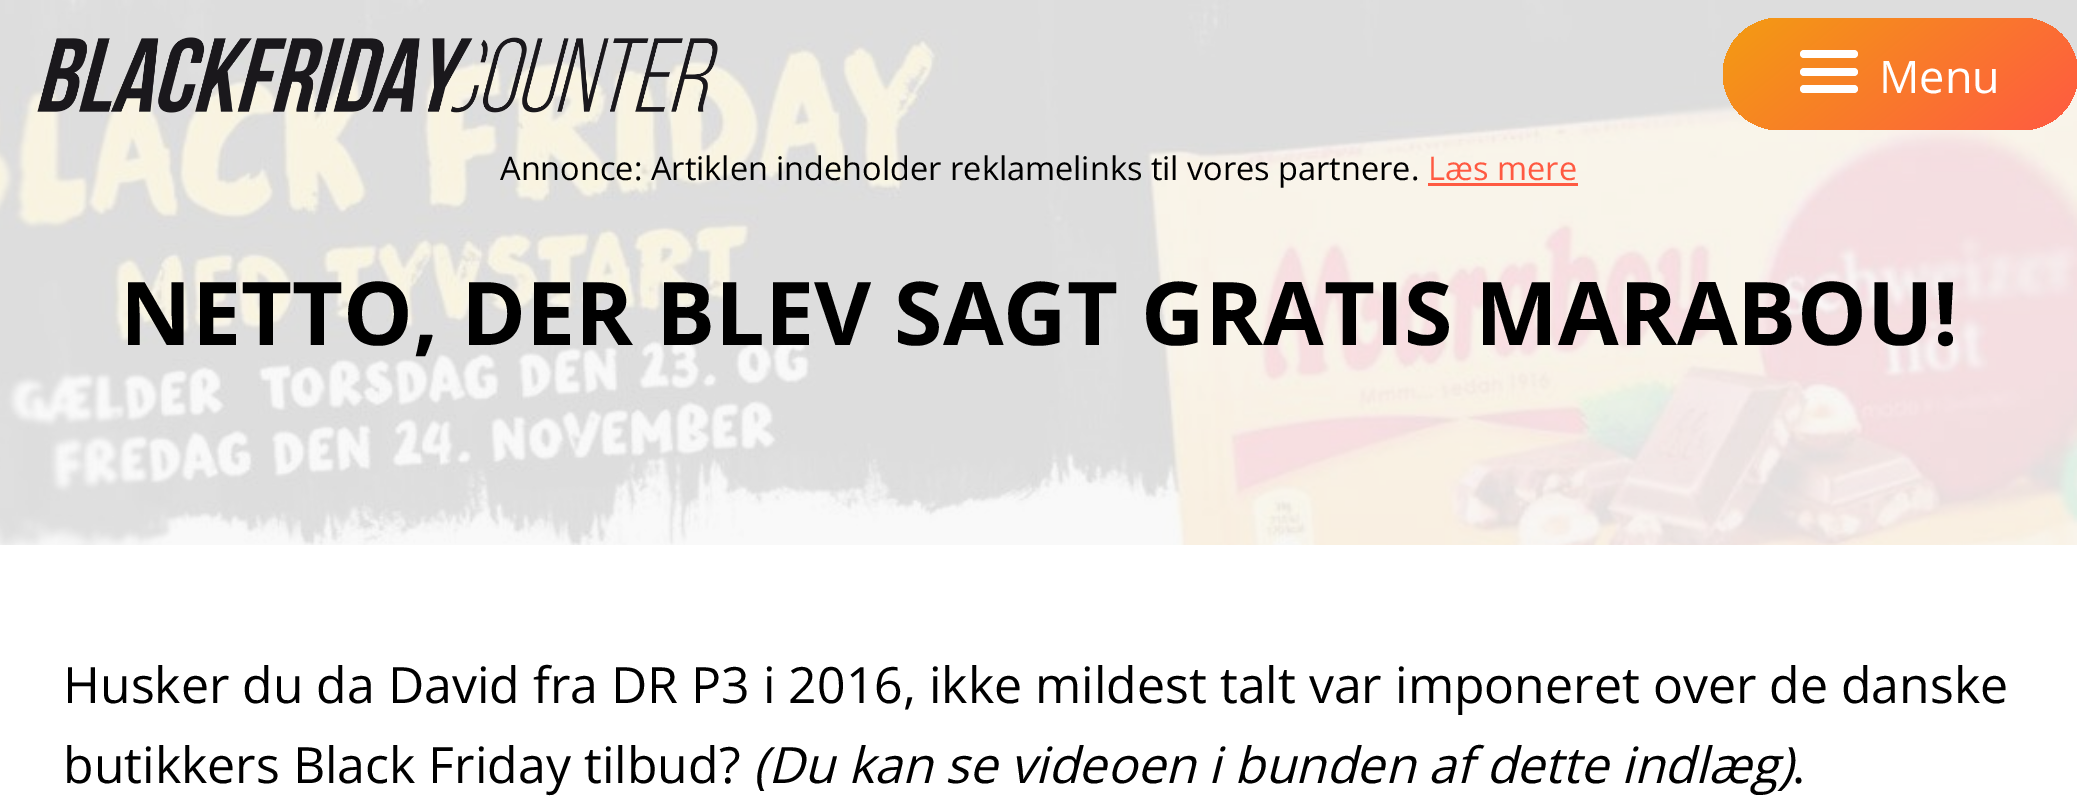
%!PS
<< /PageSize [2077 803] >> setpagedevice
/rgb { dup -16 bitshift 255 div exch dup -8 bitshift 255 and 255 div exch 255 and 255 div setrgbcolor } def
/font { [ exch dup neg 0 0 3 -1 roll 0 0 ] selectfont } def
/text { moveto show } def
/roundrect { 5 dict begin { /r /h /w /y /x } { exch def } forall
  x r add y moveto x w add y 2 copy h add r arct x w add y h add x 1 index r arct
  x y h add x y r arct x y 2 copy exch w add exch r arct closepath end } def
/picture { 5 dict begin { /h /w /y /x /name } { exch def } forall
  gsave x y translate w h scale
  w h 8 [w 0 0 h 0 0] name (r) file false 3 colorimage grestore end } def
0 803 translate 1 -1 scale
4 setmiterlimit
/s1 { /OpenSans-Regular 45 font 16#FFFFFF rgb } def
/s2 { /OpenSans-Regular 32.5 font 16#000000 rgb } def
/s3 { /OpenSans-Regular 32.5 font 16#FF5A42 rgb } def
/s4 { /OpenSans-Bold 88 font 16#000000 rgb } def
/s5 { /OpenSans-Regular 50 font 16#000000 rgb } def
/s6 { /OpenSans-Italic 50 font 16#000000 rgb } def
16#FFFFFF rgb
0 0 2077 803 rectfill
(pic2.raw) 0 0 2077 545 picture
(pic1.raw) 37 37 681 76 picture
gsave 1723 18 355 112 56 roundrect clip newpath
<< /ShadingType 2 /ColorSpace /DeviceRGB /Coords [1802 -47 1998 195] /Extend [true true] /Function << /FunctionType 2 /Domain [0 1] /C0 [0.953 0.612 0.071] /C1 [1 0.353 0.259] /N 1 >> >> shfill grestore
1800 50 58 8 4 roundrect fill
1800 68 58 8 4 roundrect fill
1800 85 58 8 4 roundrect fill
s1
(Menu) 1879 93 text
s2
(Annonce: Artiklen indeholder reklamelinks til vores partnere.) 500 180 text
s3
(Læs mere) 1428 180 text
1428 183 150 3 rectfill
s4
(NETTO, DER BLEV SAGT GRATIS MARABOU!) 120 345 text
s5
(Husker du da David fra DR P3 i 2016, ikke mildest talt var imponeret over de danske) 63 703 text
(butikkers Black Friday tilbud?) 63 783 text
s6
(\(Du kan se videoen i bunden af dette indlæg\)) 753 783 text
s5
(.) 1792 783 text
showpage
